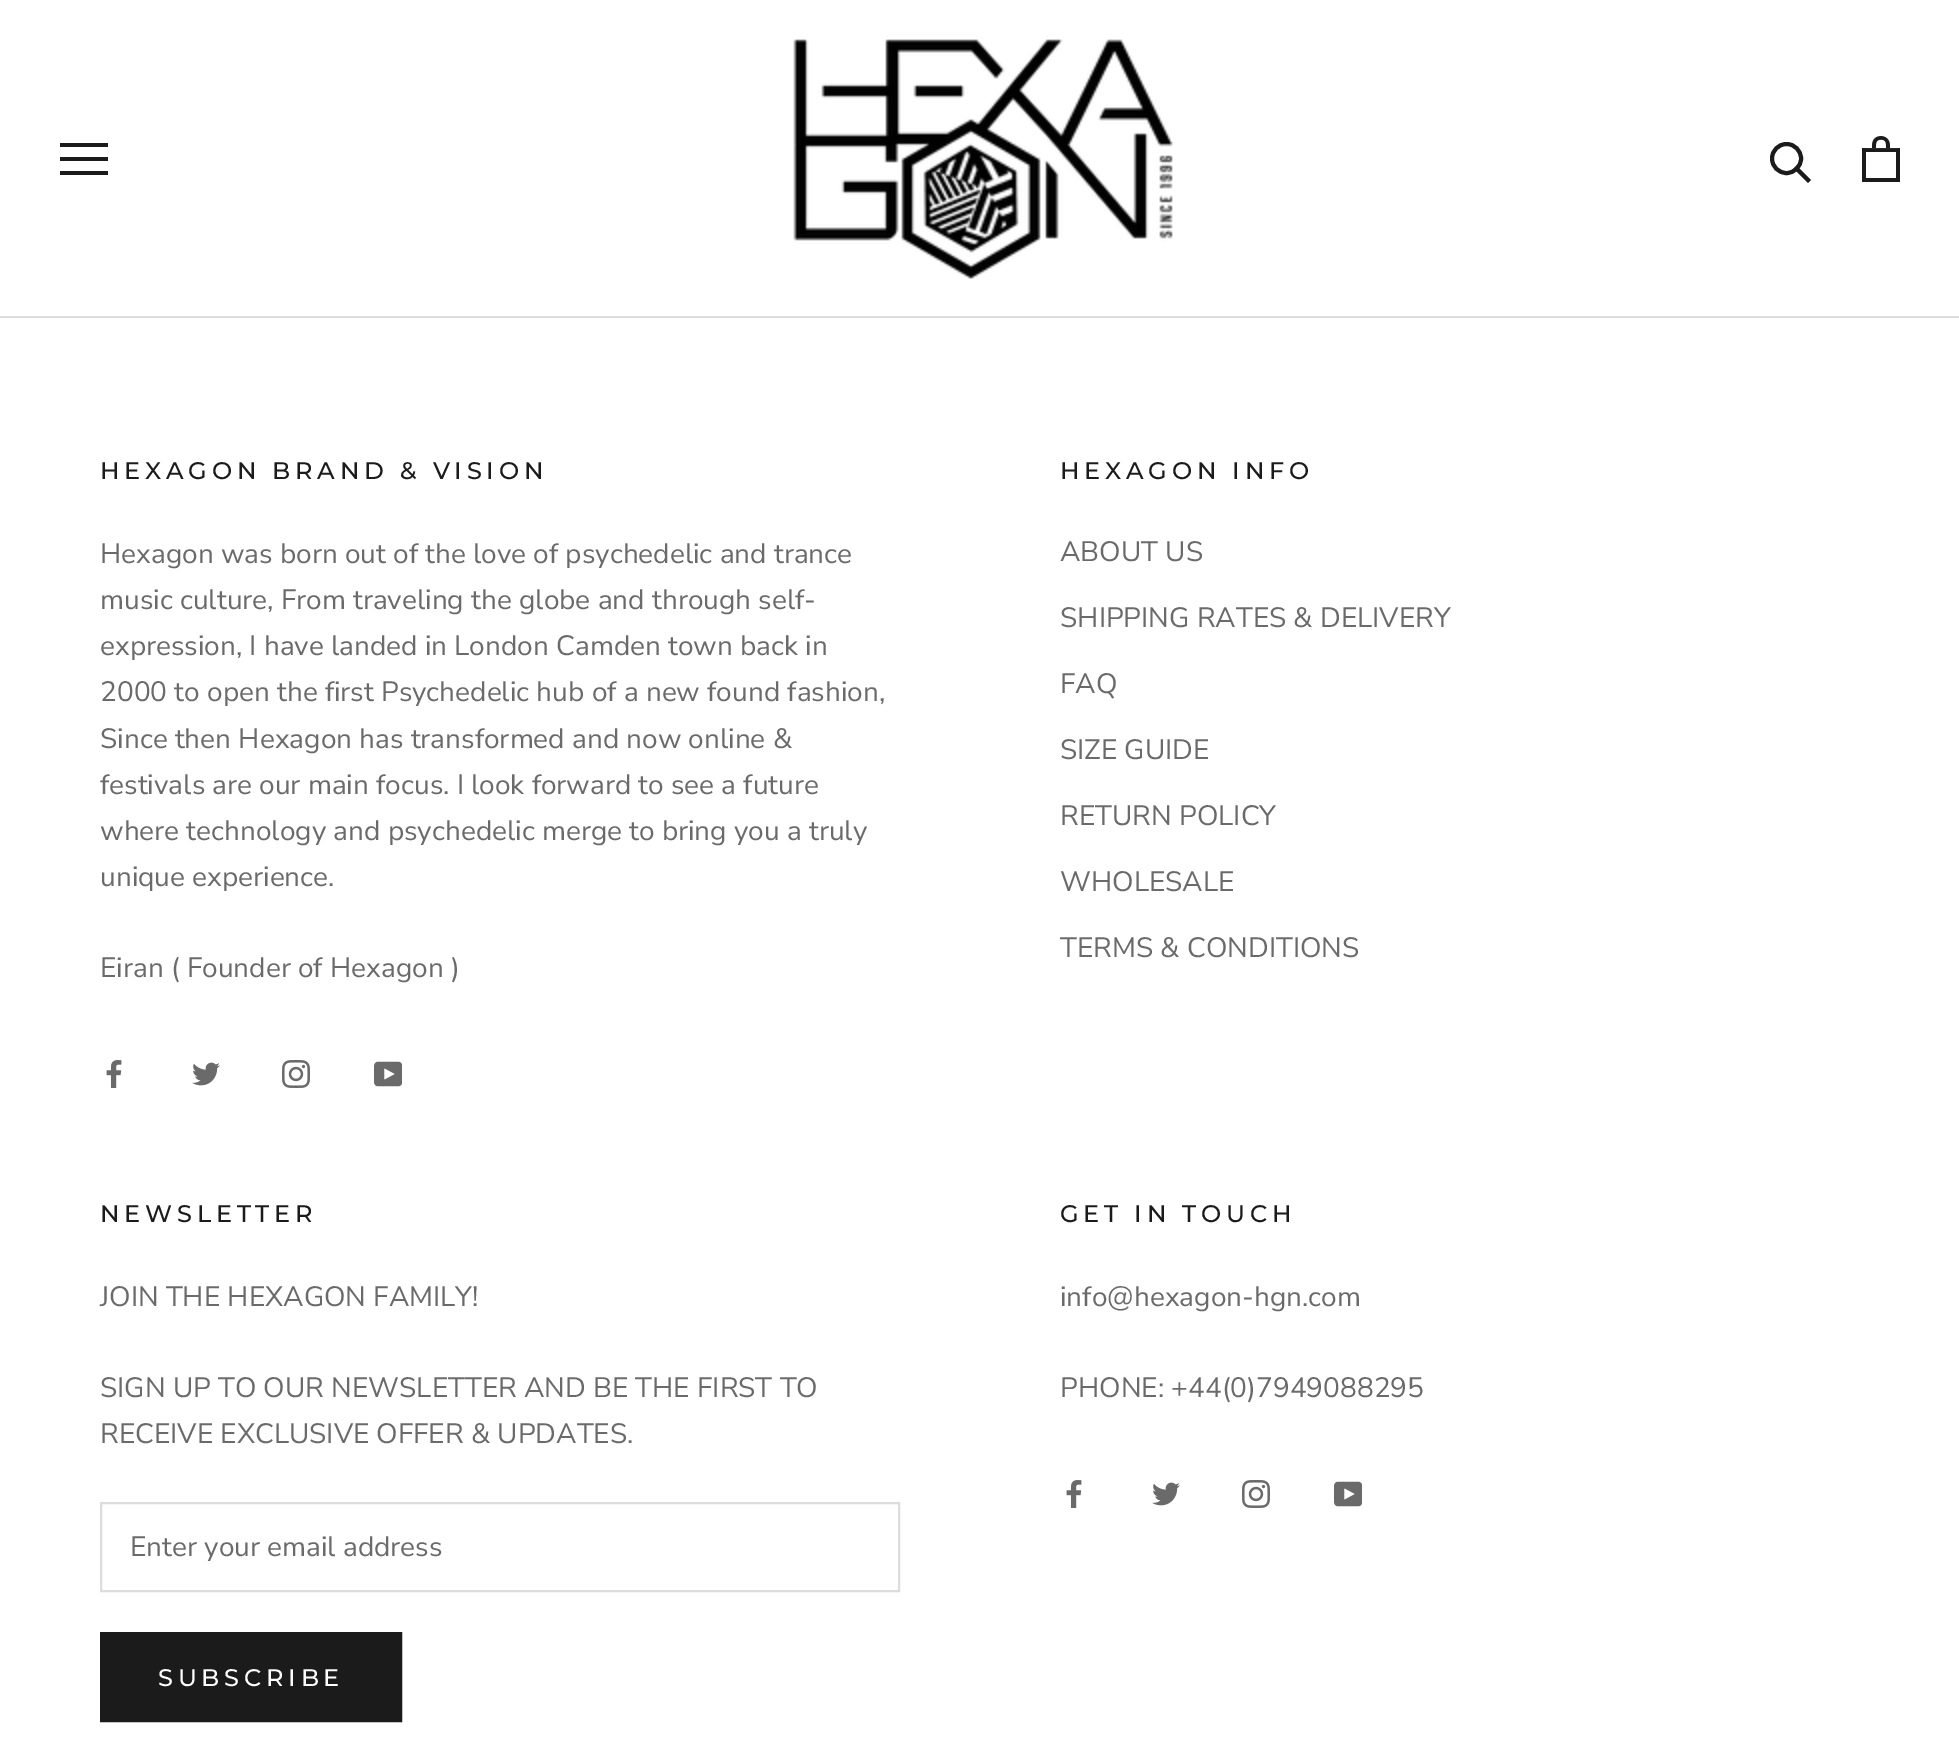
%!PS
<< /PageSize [1959 1745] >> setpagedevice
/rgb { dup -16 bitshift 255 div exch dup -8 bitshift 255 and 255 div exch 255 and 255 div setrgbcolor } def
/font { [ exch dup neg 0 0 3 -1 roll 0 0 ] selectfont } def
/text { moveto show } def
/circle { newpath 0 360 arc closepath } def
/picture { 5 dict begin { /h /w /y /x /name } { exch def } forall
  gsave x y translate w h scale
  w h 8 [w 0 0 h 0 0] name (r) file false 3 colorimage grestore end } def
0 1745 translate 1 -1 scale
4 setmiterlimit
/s1 { /NunitoSans-Regular 28 font 16#6A6A6A rgb } def
16#FFFFFF rgb
0 0 1959 1745 rectfill
16#DDDDDD rgb
0 316 1959 2 rectfill
16#1C1B1B rgb
60 175 moveto 60 171 lineto 108 171 lineto 108 175 lineto closepath 60 157 moveto 108 157 lineto 108 161 lineto 60 161 lineto closepath 60 143 moveto 108 143 lineto 108 147 lineto 60 147 lineto closepath fill
(pic1.raw) 793 39 380 241 picture
4 setlinewidth
2 setlinecap
1808 180 moveto 1796.5 168.5 lineto stroke
0 setlinecap
1786.5 158.5 14.5 circle stroke
(pic2.raw) 1862 136 38 46 picture
/Montserrat-Medium 24 font
100 479 moveto 4.8 0 (HEXAGON BRAND & VISION) ashow
s1
(Hexagon was born out of the love of psychedelic and trance) 100 563 text
(music culture, From traveling the globe and through self-) 100 609 text
(expression, I have landed in London Camden town back in) 100 655 text
(2000 to open the first Psychedelic hub of a new found fashion,) 100 701 text
(Since then Hexagon has transformed and now online &) 100 748 text
(festivals are our main focus. I look forward to see a future) 100 794 text
(where technology and psychedelic merge to bring you a truly) 100 840 text
(unique experience.) 100 886 text
(Eiran \( Founder of Hexagon \)) 100 977 text
(pic3.raw) 106 1060 16 28 picture
(pic4.raw) 192 1062 28 24 picture
(pic5.raw) 282 1060 28 28 picture
(pic6.raw) 374 1061 28 26 picture
/Montserrat-Medium 24 font
16#1C1B1B rgb
1060 479 moveto 4.8 0 (HEXAGON INFO) ashow
s1
(ABOUT US) 1060 561 text
(SHIPPING RATES & DELIVERY) 1060 627 text
(FAQ) 1060 693 text
(SIZE GUIDE) 1060 759 text
(RETURN POLICY) 1060 825 text
(WHOLESALE) 1060 891 text
(TERMS & CONDITIONS) 1060 957 text
/Montserrat-Medium 24 font
16#1C1B1B rgb
100 1222 moveto 4.8 0 (NEWSLETTER) ashow
s1
(JOIN THE HEXAGON FAMILY!) 100 1306 text
(SIGN UP TO OUR NEWSLETTER AND BE THE FIRST TO) 100 1397 text
(RECEIVE EXCLUSIVE OFFER & UPDATES.) 100 1443 text
16#DDDDDD rgb
2 setlinewidth
101 1503 798 88 rectstroke
s1
(Enter your email address) 130 1556 text
16#1C1B1B rgb
101 1633 300 88 rectstroke
102 1634 298 86 rectfill
/Montserrat-Medium 24 font
16#FFFFFF rgb
158 1686 moveto 4.8 0 (SUBSCRIBE) ashow
16#1C1B1B rgb
1060 1222 moveto 4.8 0 (GET IN TOUCH) ashow
s1
(info@hexagon-hgn.com) 1060 1306 text
(PHONE: +44\(0\)7949088295) 1060 1397 text
(pic3.raw) 1066 1480 16 28 picture
(pic4.raw) 1152 1482 28 24 picture
(pic5.raw) 1242 1480 28 28 picture
(pic6.raw) 1334 1481 28 26 picture
showpage
